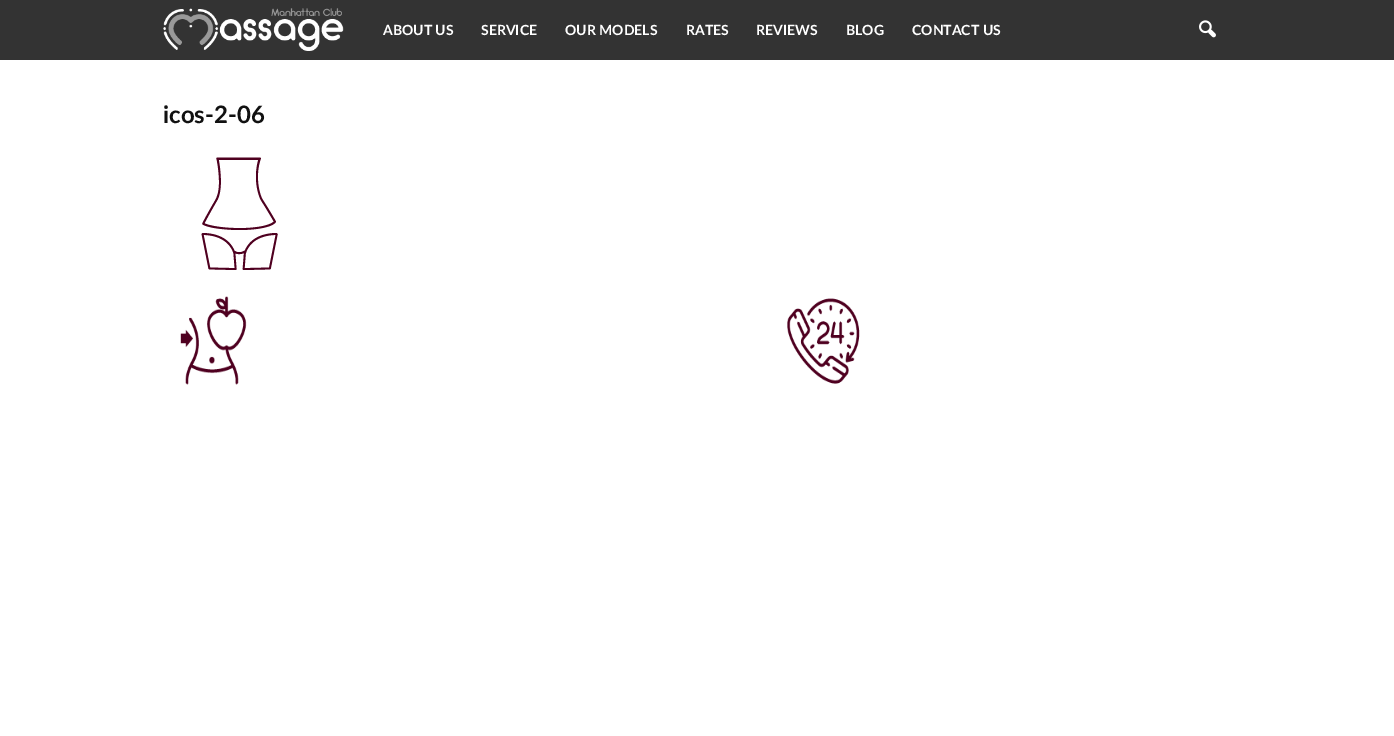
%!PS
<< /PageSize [1394 736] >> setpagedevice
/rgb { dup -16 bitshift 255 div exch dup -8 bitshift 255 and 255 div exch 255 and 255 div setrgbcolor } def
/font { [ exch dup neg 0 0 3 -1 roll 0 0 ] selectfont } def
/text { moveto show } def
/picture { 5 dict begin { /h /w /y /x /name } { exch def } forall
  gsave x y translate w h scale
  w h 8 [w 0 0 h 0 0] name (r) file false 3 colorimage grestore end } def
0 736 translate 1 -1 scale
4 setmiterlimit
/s1 { /Lato-Bold 14 font 16#FFFFFF rgb } def
/s2 { /Lato-Bold 24 font 16#111111 rgb } def
16#FFFFFF rgb
0 0 1394 736 rectfill
16#333333 rgb
0 0 1394 60 rectfill
(pic1.raw) 163 8 181 43 picture
s1
(ABOUT US) 383 35 text
(SERVICE) 481 35 text
(OUR MODELS) 565 35 text
(RATES) 686 35 text
(REVIEWS) 756 35 text
(BLOG) 846 35 text
(CONTACT US) 912 35 text
(pic2.raw) 1199 20 17 18 picture
s2
(icos-2-06) 163 123 text
(pic3.raw) 201 157 77 113 picture
(pic4.raw) 180 296 67 89 picture
(pic5.raw) 787 298 73 86 picture
showpage
